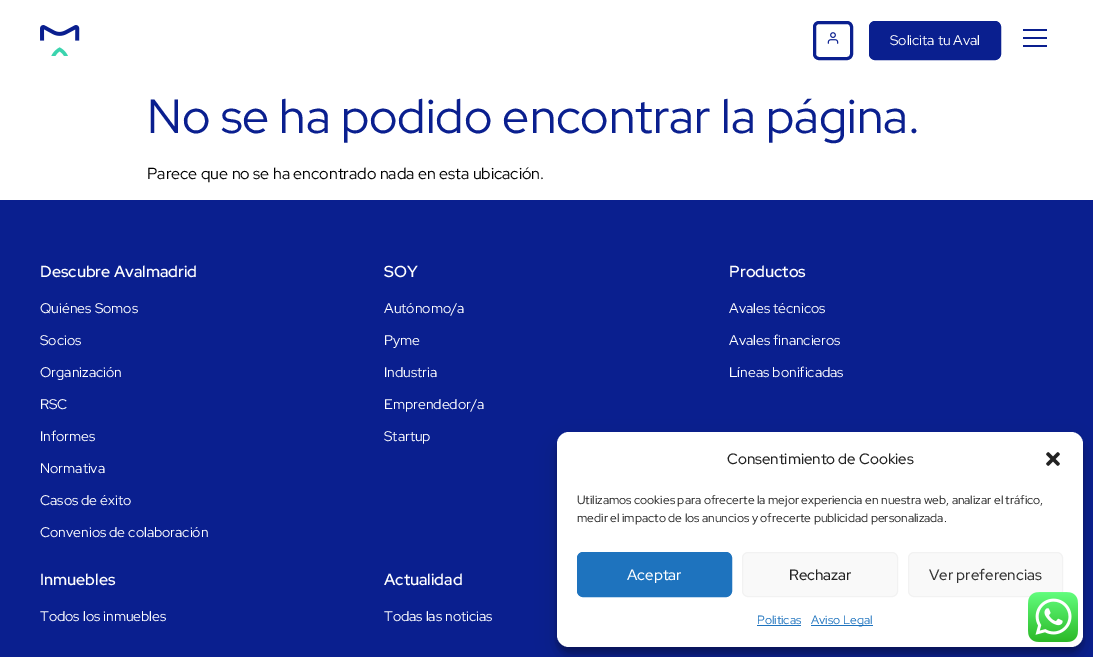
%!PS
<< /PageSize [1093 657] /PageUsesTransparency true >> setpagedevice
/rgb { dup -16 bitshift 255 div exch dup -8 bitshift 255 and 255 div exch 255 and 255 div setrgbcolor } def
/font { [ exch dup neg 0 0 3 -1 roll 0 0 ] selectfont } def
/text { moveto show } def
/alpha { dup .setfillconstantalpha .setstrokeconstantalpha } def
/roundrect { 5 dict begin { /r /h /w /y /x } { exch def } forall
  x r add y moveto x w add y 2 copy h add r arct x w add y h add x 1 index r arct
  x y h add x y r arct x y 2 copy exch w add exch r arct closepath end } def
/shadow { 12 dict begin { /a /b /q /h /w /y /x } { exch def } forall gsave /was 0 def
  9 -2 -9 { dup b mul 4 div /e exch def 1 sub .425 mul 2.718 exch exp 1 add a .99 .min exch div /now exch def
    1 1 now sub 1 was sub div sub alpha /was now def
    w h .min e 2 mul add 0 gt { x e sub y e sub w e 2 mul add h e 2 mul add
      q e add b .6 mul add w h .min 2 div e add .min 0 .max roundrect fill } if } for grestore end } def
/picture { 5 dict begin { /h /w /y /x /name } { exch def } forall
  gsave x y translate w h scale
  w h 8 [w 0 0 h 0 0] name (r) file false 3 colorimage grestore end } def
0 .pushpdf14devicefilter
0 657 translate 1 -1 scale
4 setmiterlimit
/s1 { /RedHatDisplay-Regular 14 font 16#FFFFFF rgb } def
/s2 { /RedHatDisplay-Regular 48 font 16#0A1F8F rgb } def
/s3 { /RedHatDisplay-Regular 16 font 16#000000 rgb } def
/s4 { /RedHatDisplay-SemiBold 16 font 16#FFFFFF rgb } def
/s5 { /RedHatDisplay-Medium 15 font 16#222222 rgb } def
/s6 { /RedHatDisplay-Regular 12 font 16#222222 rgb } def
/s7 { /RedHatDisplay-Medium 15 font 16#FFFFFF rgb } def
/s8 { /RedHatDisplay-Medium 15 font 16#333333 rgb } def
/s9 { /RedHatDisplay-Regular 12 font 16#1E73BE rgb } def
16#FFFFFF rgb
0 0 1093 657 rectfill
(pic1.raw) 40 25 40 31 picture
16#0A1F8F rgb
3 setlinewidth
814.5 22.5 37 36 4.5 roundrect stroke
(pic2.raw) 827 32 12 12 picture
869.5 21.5 131 38 5.5 roundrect gsave fill grestore
1 setlinewidth
stroke
s1
(Solicita tu Aval) 890 45 text
(pic3.raw) 1023 29 24 18 picture
s2
(No se ha podido encontrar la página.) 147 133 text
s3
(Parece que no se ha encontrado nada en esta ubicación.) 147 179 text
16#0A1F8F rgb
0 200 1093 457 rectfill
s4
(Descubre Avalmadrid) 40 277 text
s1
(Quiénes Somos) 40 313 text
(Socios) 40 345 text
(Organización) 40 377 text
(RSC) 40 409 text
(Informes) 40 441 text
(Normativa) 40 473 text
(Casos de éxito) 40 505 text
(Convenios de colaboración) 40 537 text
s4
(SOY) 384 277 text
s1
(Autónomo/a) 384 313 text
(Pyme) 384 345 text
(Industria) 384 377 text
(Emprendedor/a) 384 409 text
(Startup) 384 441 text
s4
(Productos) 729 277 text
s1
(Avales técnicos) 729 313 text
(Avales financieros) 729 345 text
(Líneas bonificadas) 729 377 text
s4
(Inmuebles) 40 585 text
s1
(Todos los inmuebles) 40 621 text
s4
(Actualidad) 384 585 text
s1
(Todas las noticias) 384 621 text
16#000000 rgb
557 438 526 215 12 3 0.23 shadow
557 442 526 215 12 10 0.19 shadow
16#FFFFFF rgb
557 432 526 215 12 roundrect fill
s5
(Consentimiento de Cookies) 727 464 text
(pic4.raw) 1046 452 14 14 picture
s6
(Utilizamos cookies para ofrecerte la mejor experiencia en nuestra web, analizar el tráfico,) 577 504 text
(medir el impacto de los anuncios y ofrecerte publicidad personalizada.) 577 522 text
16#1E73BE rgb
577.5 552.5 154 44 5.5 roundrect gsave fill grestore
stroke
s7
(Aceptar) 627 580 text
16#F9F9F9 rgb
742.5 552.5 155 44 5.5 roundrect gsave fill grestore
16#F2F2F2 rgb
stroke
s5
(Rechazar) 789 580 text
16#F9F9F9 rgb
908.5 552.5 154 44 5.5 roundrect gsave fill grestore
16#F2F2F2 rgb
stroke
s8
(Ver preferencias) 929 580 text
s9
(Politicas) 757 624 text
757 625 44 1 rectfill
811 625 62 1 rectfill
(Aviso Legal) 811 624 text
(pic5.raw) 1028 592 50 50 picture
.poppdf14devicefilter showpage
